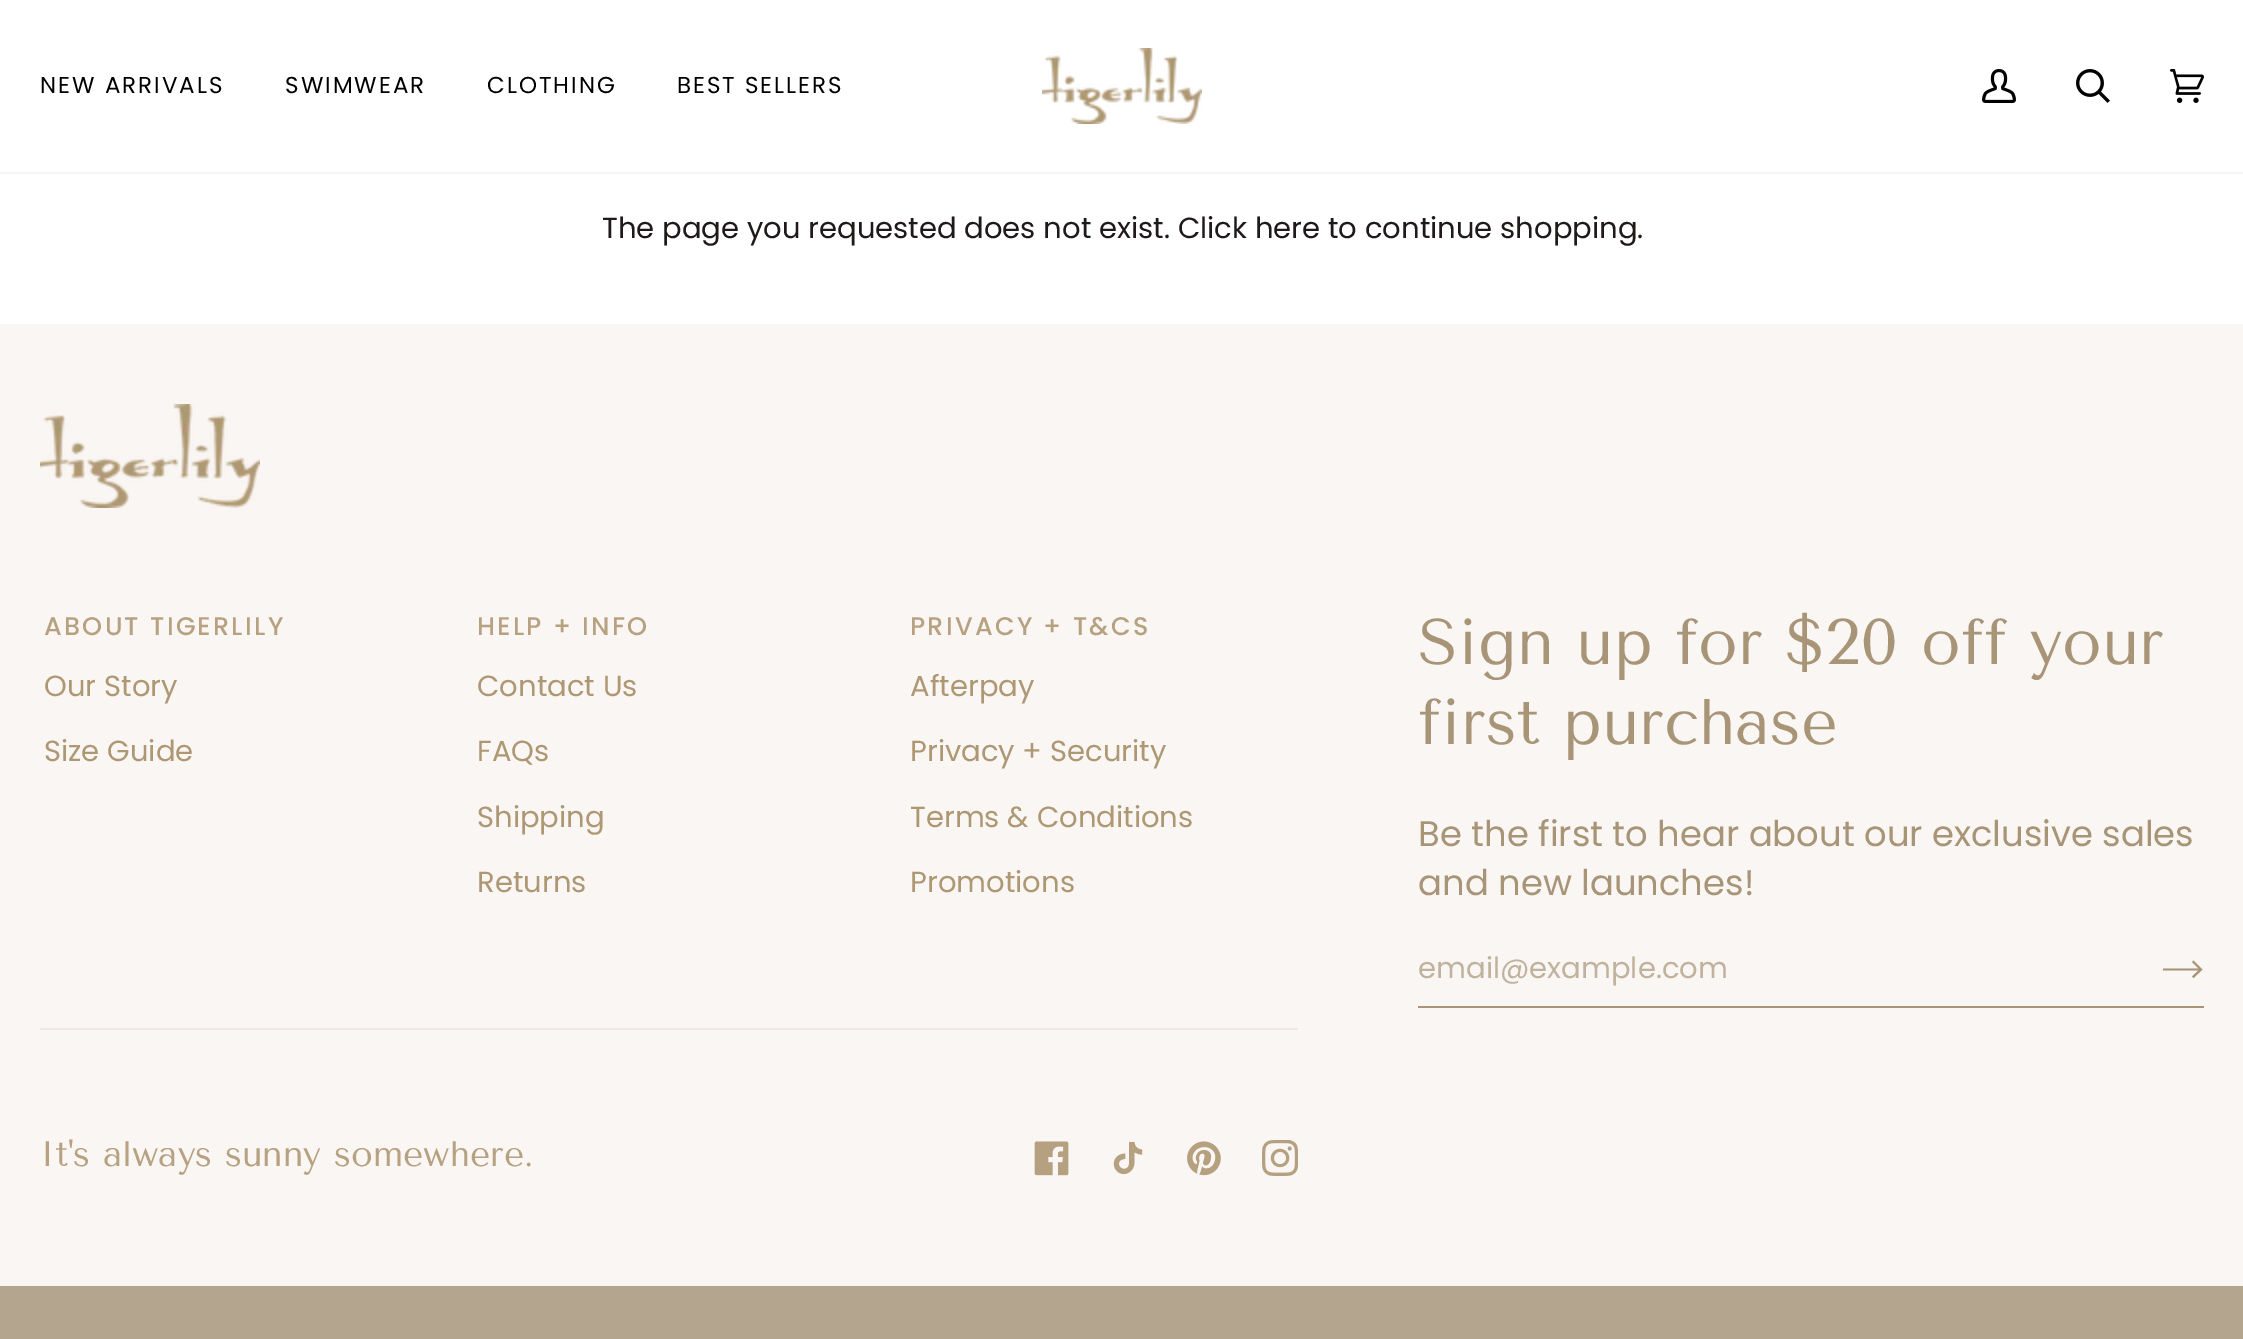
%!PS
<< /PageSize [2243 1339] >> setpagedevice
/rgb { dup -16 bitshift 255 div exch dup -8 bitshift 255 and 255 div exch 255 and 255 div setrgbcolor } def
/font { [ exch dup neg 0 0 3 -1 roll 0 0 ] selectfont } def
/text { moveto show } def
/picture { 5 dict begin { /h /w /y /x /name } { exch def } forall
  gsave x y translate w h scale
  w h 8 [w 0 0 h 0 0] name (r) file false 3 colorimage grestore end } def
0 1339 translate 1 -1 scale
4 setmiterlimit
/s1 { /Poppins-Regular 29.05 font 16#1F1919 rgb } def
/s2 { /Poppins-Regular 29.05 font 16#AE9773 rgb } def
/s3 { /TenorSans-Regular 35.4 font 16#B6A180 rgb } def
/s4 { /TenorSans-Regular 64.25 font 16#A89577 rgb } def
/s5 { /Poppins-Regular 35.4 font 16#A89577 rgb } def
/s6 { /Poppins-Regular 29.05 font 16#C0B29D rgb } def
16#FFFFFF rgb
0 0 2243 1339 rectfill
16#F7F5F4 rgb
0 172 2243 2 rectfill
/Poppins-Regular 23 font
16#000000 rgb
40 93 moveto 2 0 (NEW ARRIVALS) ashow
285 93 moveto 2 0 (SWIMWEAR) ashow
487 93 moveto 2 0 (CLOTHING) ashow
677 93 moveto 2 0 (BEST SELLERS) ashow
(pic1.raw) 1042 48 160 76 picture
(pic2.raw) 1982 69 34 34 picture
(pic3.raw) 2076 69 34 34 picture
(pic4.raw) 2170 69 34 34 picture
s1
(The page you requested does not exist. Click here to continue shopping.) 602 238 text
16#FAF6F4 rgb
0 324 2243 962 rectfill
(pic5.raw) 40 404 220 104 picture
/Poppins-Medium 25.5 font
16#B6A180 rgb
44 635 moveto 2.25 0 (ABOUT TIGERLILY) ashow
s2
(Our Story) 44 696 text
(Size Guide) 44 761 text
/Poppins-Medium 25.5 font
16#B6A180 rgb
477 635 moveto 2.25 0 (HELP + INFO) ashow
s2
(Contact Us) 477 696 text
(FAQs) 477 761 text
(Shipping) 477 827 text
(Returns) 477 892 text
/Poppins-Medium 25.5 font
16#B6A180 rgb
910 635 moveto 2.25 0 (PRIVACY + T&CS) ashow
s2
(Afterpay) 910 696 text
(Privacy + Security) 910 761 text
(Terms & Conditions) 910 827 text
(Promotions) 910 892 text
16#EFE8E1 rgb
40 1028 1258 2 rectfill
s3
(It's always sunny somewhere.) 40 1166 text
(pic6.raw) 1034 1141 35 35 picture
(pic7.raw) 1113 1141 30 34 picture
(pic8.raw) 1187 1141 34 35 picture
(pic9.raw) 1262 1140 36 36 picture
s4
(Sign up for $20 off your) 1418 664 text
(first purchase) 1418 744 text
s5
(Be the first to hear about our exclusive sales) 1418 846 text
(and new launches!) 1418 895 text
1418 1006 786 2 rectfill
s6
(email@example.com) 1418 978 text
16#A89577 rgb
2192 962 moveto 2193.5 960.5 lineto 2202.5 969.5 lineto 2193.5 978 lineto 2192 976.5 lineto 2198.5 970.5 lineto 2163 970.5 lineto 2163 968.5 lineto 2198.5 968.5 lineto closepath fill
16#B3A58E rgb
0 1286 2243 53 rectfill
showpage
